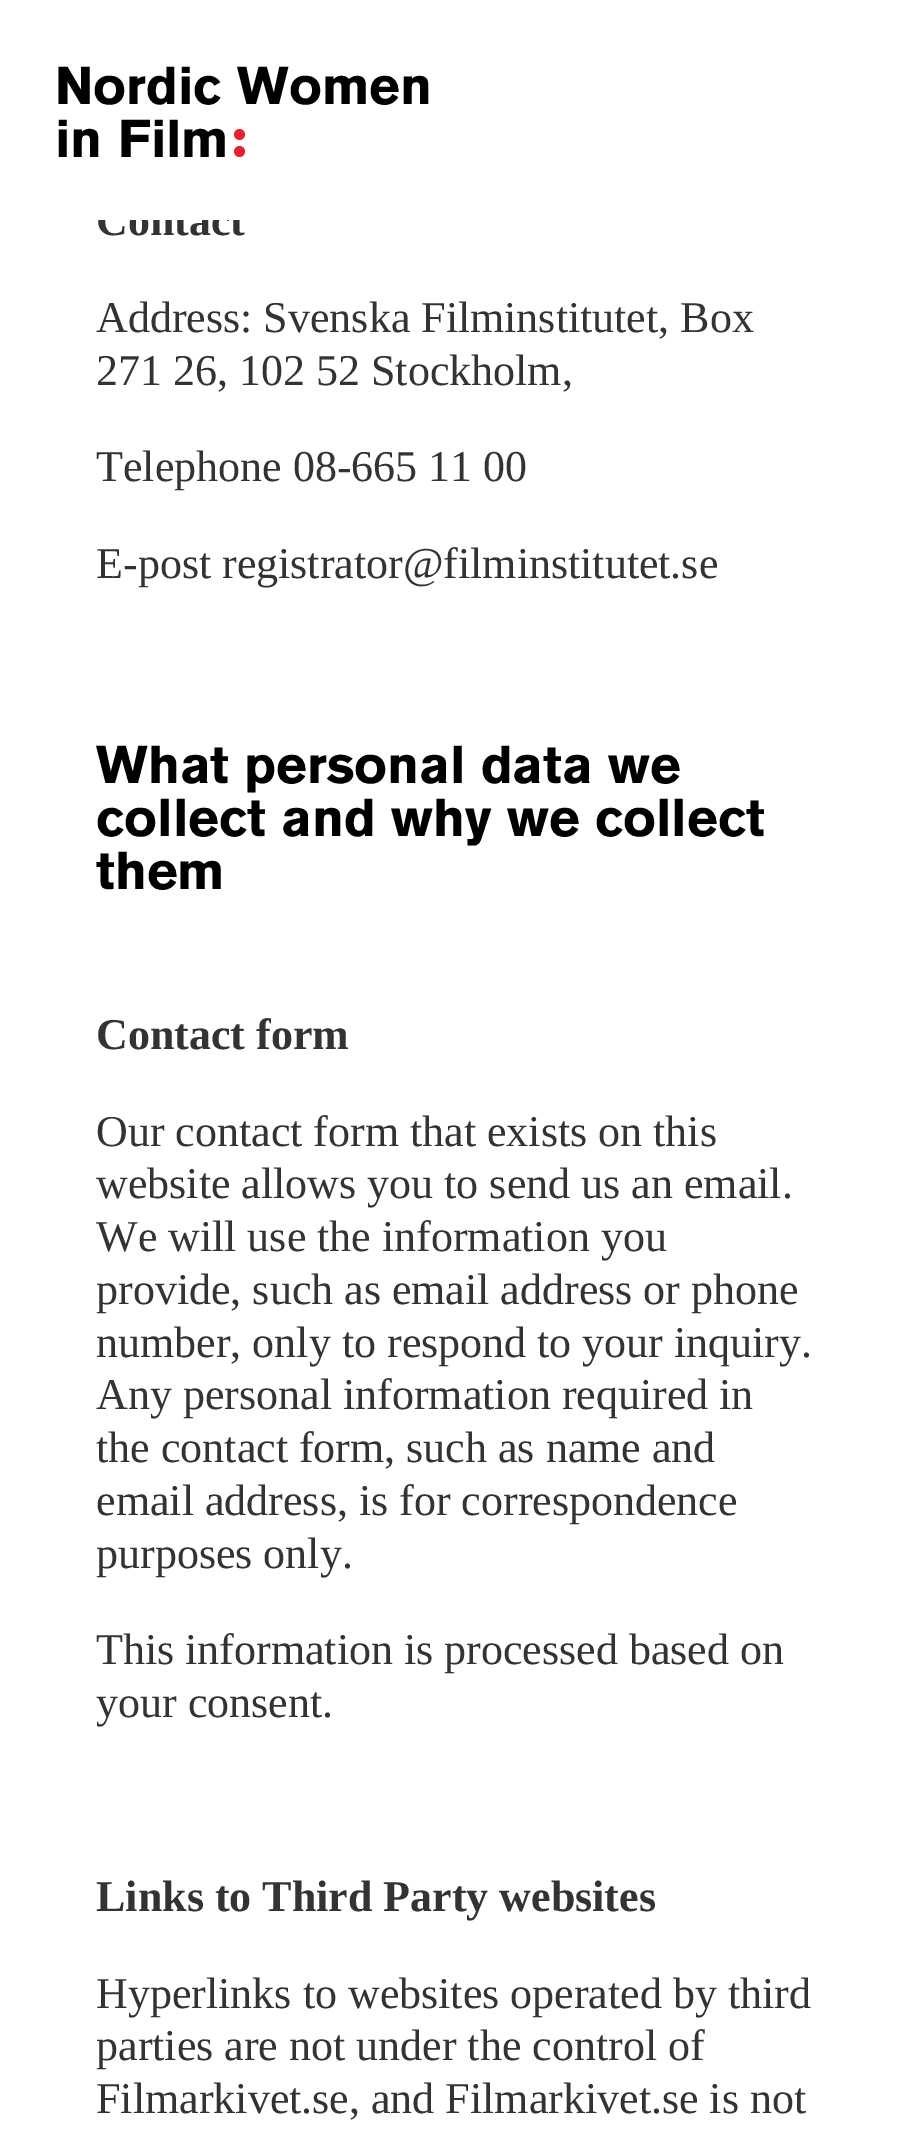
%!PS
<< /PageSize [909 2141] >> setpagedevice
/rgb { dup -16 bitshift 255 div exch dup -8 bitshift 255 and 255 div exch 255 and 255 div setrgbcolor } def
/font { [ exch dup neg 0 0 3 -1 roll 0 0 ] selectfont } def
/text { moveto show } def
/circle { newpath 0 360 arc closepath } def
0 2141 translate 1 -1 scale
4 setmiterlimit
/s1 { /LiberationSerif-Bold 44 font 16#333333 rgb } def
/s2 { /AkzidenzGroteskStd-Bold 52.75 font 16#000000 rgb } def
/s3 { /LiberationSerif-Regular 44 font 16#333333 rgb } def
16#FFFFFF rgb
0 0 909 2141 rectfill
s1
(Contact) 96 235 text
16#FFFFFF rgb
98 205 147 15 rectfill
s2
(Nordic Women) 55 104 text
(in Film) 55 157 text
16#E52330 rgb
239.5 134.5 5.5 circle fill
239.5 151.5 5.5 circle fill
s3
(Address: Svenska Filminstitutet, Box) 96 332 text
(271 26, 102 52 Stockholm,) 96 385 text
(Telephone 08-665 11 00) 96 481 text
(E-post registrator@filminstitutet.se) 96 578 text
s2
(What personal data we) 96 783 text
(collect and why we collect) 96 836 text
(them) 96 889 text
s1
(Contact form) 96 1049 text
s3
(Our contact form that exists on this) 96 1146 text
(website allows you to send us an email.) 96 1198 text
(We will use the information you) 96 1251 text
(provide, such as email address or phone) 96 1304 text
(number, only to respond to your inquiry.) 96 1357 text
(Any personal information required in) 96 1409 text
(the contact form, such as name and) 96 1462 text
(email address, is for correspondence) 96 1515 text
(purposes only.) 96 1568 text
(This information is processed based on) 96 1664 text
(your consent.) 96 1717 text
s1
(Links to Third Party websites) 96 1911 text
s3
(Hyperlinks to websites operated by third) 96 2008 text
(parties are not under the control of) 96 2060 text
(Filmarkivet.se, and Filmarkivet.se is not) 96 2113 text
showpage
